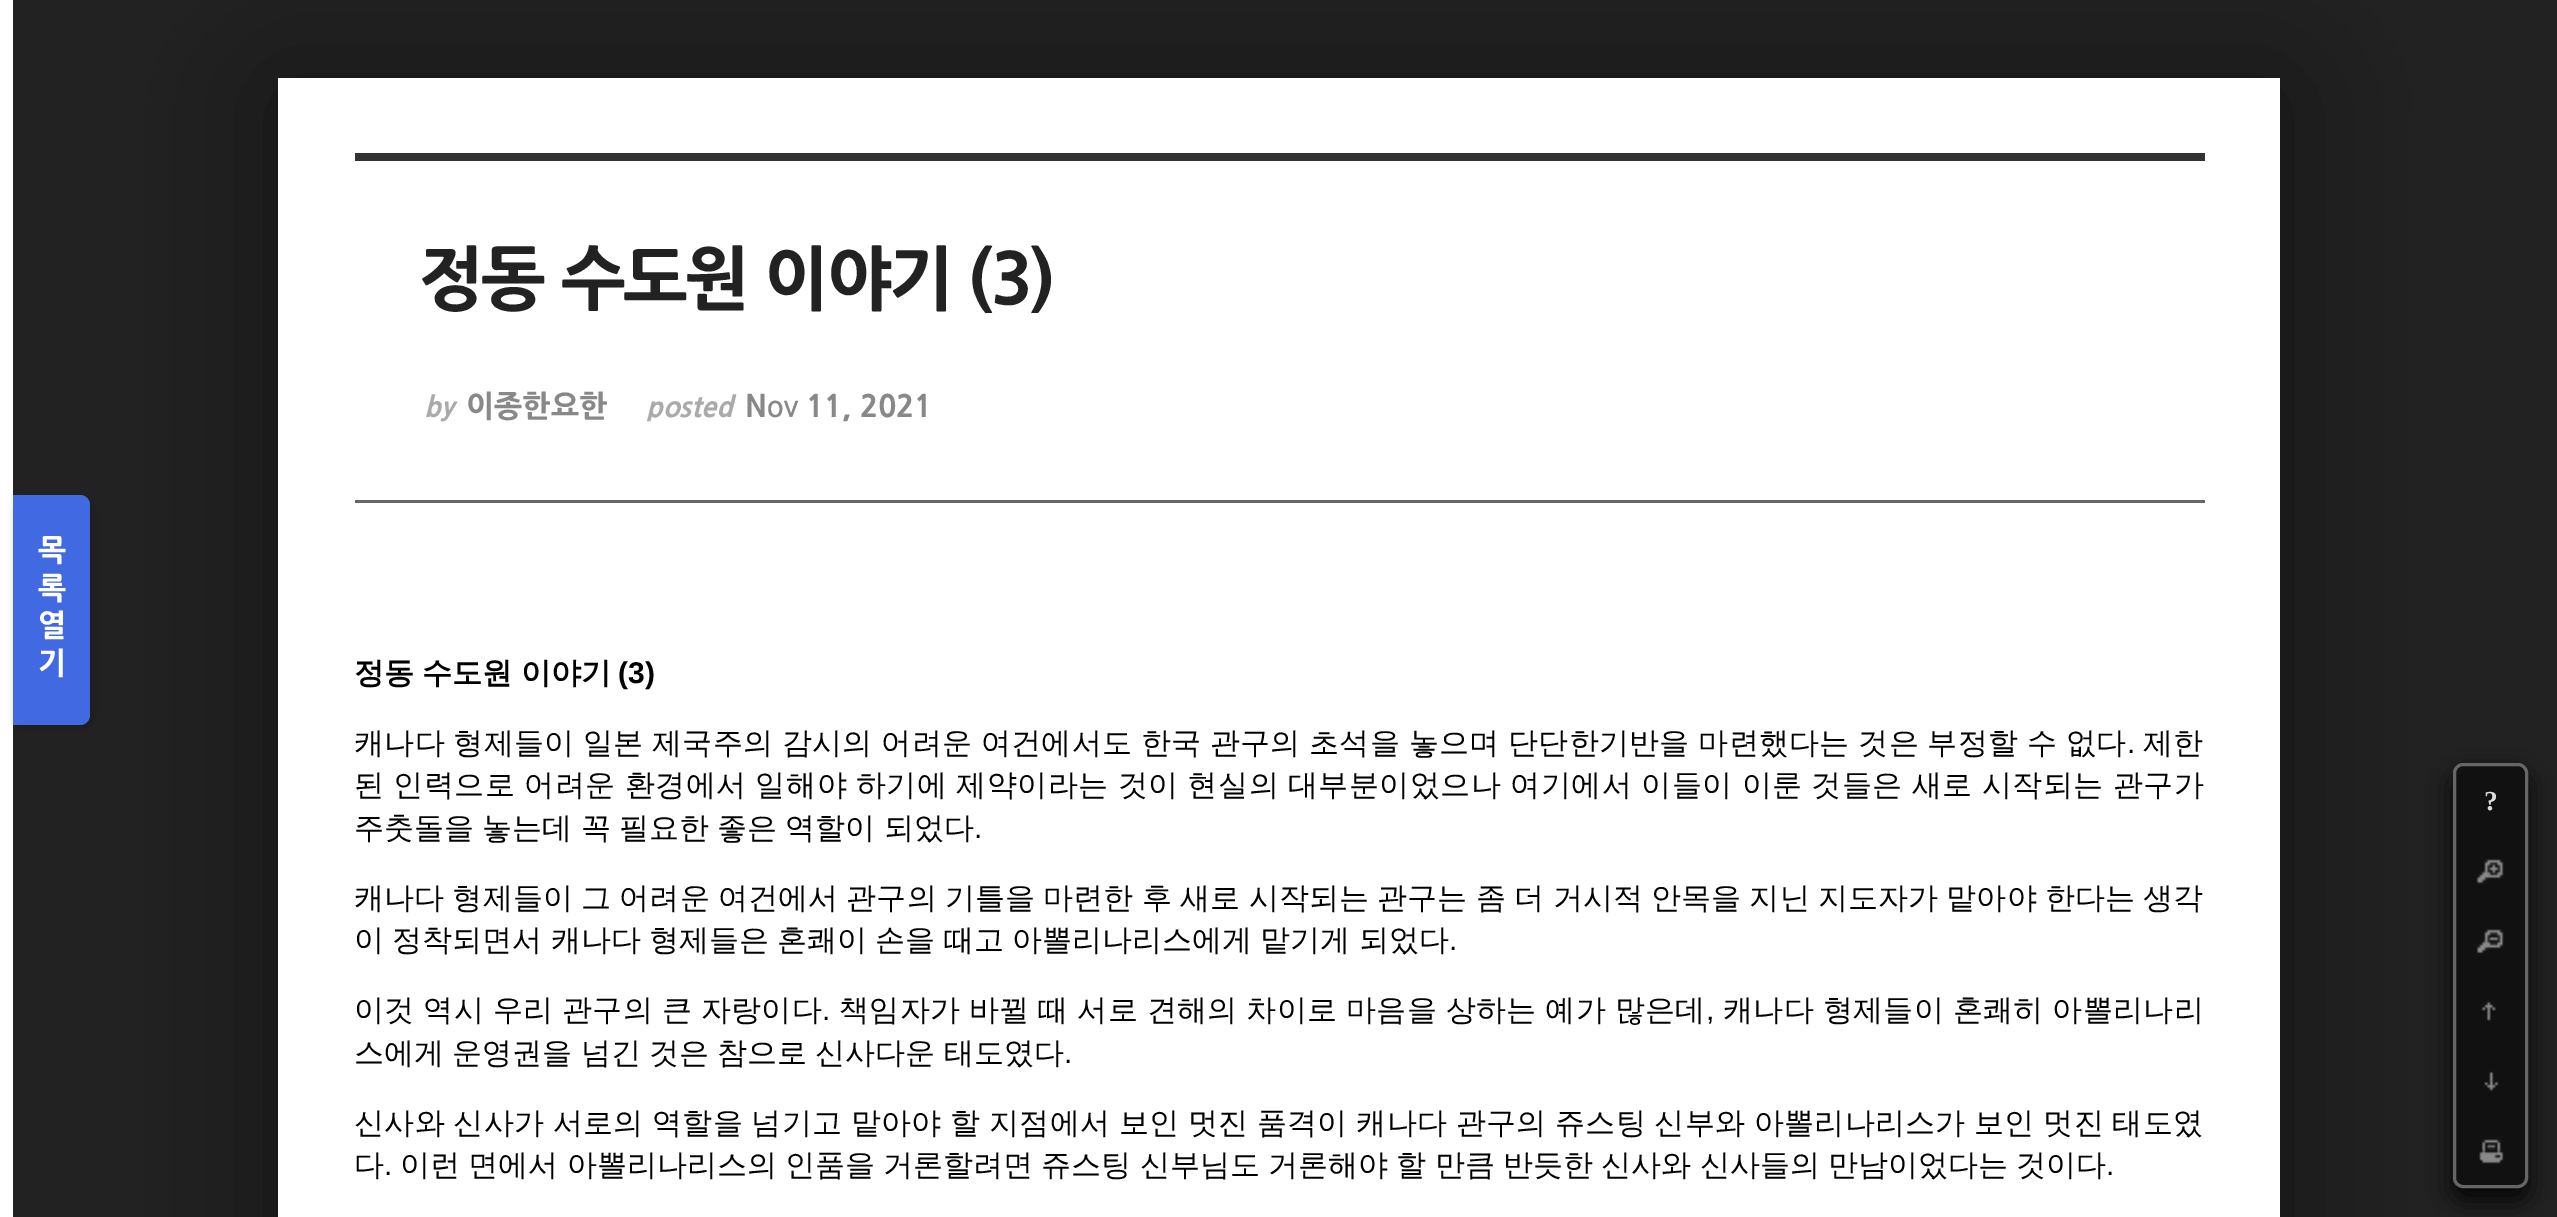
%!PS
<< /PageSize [2557 1217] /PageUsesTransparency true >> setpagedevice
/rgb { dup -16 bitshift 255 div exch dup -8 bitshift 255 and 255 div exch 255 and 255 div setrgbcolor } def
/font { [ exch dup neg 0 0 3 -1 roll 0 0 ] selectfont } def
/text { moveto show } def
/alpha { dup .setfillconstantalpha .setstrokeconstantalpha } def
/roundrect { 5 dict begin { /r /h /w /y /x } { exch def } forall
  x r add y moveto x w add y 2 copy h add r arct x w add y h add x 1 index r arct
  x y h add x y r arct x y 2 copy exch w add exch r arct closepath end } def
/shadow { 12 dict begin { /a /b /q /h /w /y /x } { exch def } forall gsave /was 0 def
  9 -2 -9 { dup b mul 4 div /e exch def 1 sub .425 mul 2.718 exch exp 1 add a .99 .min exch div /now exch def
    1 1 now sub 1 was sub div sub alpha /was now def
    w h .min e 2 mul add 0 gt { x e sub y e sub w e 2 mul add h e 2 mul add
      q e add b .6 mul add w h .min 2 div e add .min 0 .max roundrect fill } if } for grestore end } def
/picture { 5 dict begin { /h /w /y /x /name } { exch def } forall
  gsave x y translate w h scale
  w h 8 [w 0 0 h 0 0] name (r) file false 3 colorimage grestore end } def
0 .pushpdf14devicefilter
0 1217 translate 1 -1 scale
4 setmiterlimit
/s1 { /NanumGothic-ExtraBold 30 font 16#FFFFFF rgb } def
/s2 { /NanumGothic-ExtraBoldItalic 27.5 font 16#AAAAAA rgb } def
/s3 { /NanumGothic-ExtraBold 30 font 16#888888 rgb } def
/s4 { /NanumGothic-ExtraBold 21 font 16#888888 rgb } def
/s5 { /LiberationSans-Bold 30 font 16#000000 rgb } def
/s6 { /LiberationSans-Regular 30 font 16#000000 rgb } def
/s7 { /WenQuanYiZenHei-Medium 30 font 16#000000 rgb } def
16#222222 rgb
0 0 2557 1217 rectfill
16#000000 rgb
278 88 2002 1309 0 60 0.5 shadow
16#FFFFFF rgb
278 78 2002 1139 rectfill
0 0 13 1217 rectfill
16#000000 rgb
15 498 78 230 10 4 0.2 shadow
16#4169E1 rgb
13 495 moveto 80 495 lineto 85.5 495 90 499.5 90 505 curveto 90 715 lineto 90 720.5 85.5 725 80 725 curveto 13 725 lineto closepath fill
s1
(목) 38 561 text
(록) 38 599 text
(열) 38 636 text
(기) 38 674 text
16#333333 rgb
355 153 1850 8 rectfill
16#666666 rgb
355 500 1850 3 rectfill
/NanumGothic-ExtraBold 69 font
16#222222 rgb
419 304 moveto -2.5 0 (정동 수도원 이야기 \(3\)) ashow
s2
(by) 424 417 text
s3
(이종한요한) 466 417 text
s2
(posted) 646 417 text
s3
(N) 745 417 text
s4
(OV) 767 417 text
s3
(11, 2021) 806 417 text
16#000000 rgb
2453 775 75 425 10 12.5 0.9 shadow
16#111111 rgb
2454.5 764.5 72 422 8.5 roundrect gsave fill grestore
16#666666 rgb
3 setlinewidth
stroke
/LiberationSerif-Bold 27.5 font
16#DDDDDD rgb
2484 810 moveto -2.5 0 (?) ashow
(pic1.raw) 2476 859 28 25 picture
(pic2.raw) 2476 929 28 25 picture
(pic3.raw) 2481 1001 15 20 picture
(pic4.raw) 2484 1071 15 20 picture
(pic5.raw) 2479 1139 25 25 picture
/WenQuanYiZenHei-Bold 30 font
16#000000 rgb
354 683 moveto -0.7 0 32 (정동 수도원 이야기) widthshow
s5
(\(3\)) 618 683 text
/WenQuanYiZenHei-Medium 30 font
354 753 moveto -0.7 0 32 0.28 0 (캐나다 형제들이 일본 제국주의 감시의 어려운 여건에서도 한국 관구의 초석을 놓으며 단단한기반을 마련했다는 것은 부정할 수 없다) awidthshow
/LiberationSans-Regular 30 font
2127 753 moveto 0.28 0 (.) ashow
/WenQuanYiZenHei-Medium 30 font
2143 753 moveto 0.28 0 (제한) ashow
354 795 moveto -0.7 0 32 0.52 0 (된 인력으로 어려운 환경에서 일해야 하기에 제약이라는 것이 현실의 대부분이었으나 여기에서 이들이 이룬 것들은 새로 시작되는 관구가) awidthshow
354 838 moveto -0.7 0 32 (주춧돌을 놓는데 꼭 필요한 좋은 역할이 되었다) widthshow
s6
(.) 974 838 text
/WenQuanYiZenHei-Medium 30 font
354 908 moveto -0.7 0 32 0.05 0 (캐나다 형제들이 그 어려운 여건에서 관구의 기틀을 마련한 후 새로 시작되는 관구는 좀 더 거시적 안목을 지닌 지도자가 맡아야 한다는 생각) awidthshow
354 950 moveto -0.7 0 32 (이 정착되면서 캐나다 형제들은 혼쾌이 손을 때고 아뽈리나리스에게 맡기게 되었다) widthshow
s6
(.) 1449 950 text
/WenQuanYiZenHei-Medium 30 font
354 1020 moveto -0.7 0 32 0.35 0 (이것 역시 우리 관구의 큰 자랑이다) awidthshow
/LiberationSans-Regular 30 font
822 1020 moveto 0.35 0 (.) ashow
/WenQuanYiZenHei-Medium 30 font
839 1020 moveto -0.7 0 32 0.35 0 (책임자가 바뀔 때 서로 견해의 차이로 마음을 상하는 예가 많은데) awidthshow
/LiberationSans-Regular 30 font
1706 1020 moveto 0.35 0 (,) ashow
/WenQuanYiZenHei-Medium 30 font
1723 1020 moveto -0.7 0 32 0.35 0 (캐나다 형제들이 혼쾌히 아뽈리나리) awidthshow
354 1063 moveto -0.7 0 32 (스에게 운영권을 넘긴 것은 참으로 신사다운 태도였다) widthshow
s6
(.) 1064 1063 text
/WenQuanYiZenHei-Medium 30 font
354 1133 moveto -0.7 0 32 0.27 0 (신사와 신사가 서로의 역할을 넘기고 맡아야 할 지점에서 보인 멋진 품격이 캐나다 관구의 쥬스팅 신부와 아뽈리나리스가 보인 멋진 태도였) awidthshow
(다) 354 1175 text
s6
(.) 384 1175 text
/WenQuanYiZenHei-Medium 30 font
400 1175 moveto -0.7 0 32 (이런 면에서 아뽈리나리스의 인품을 거론할려면 쥬스팅 신부님도 거론해야 할 만큼 반듯한 신사와 신사들의 만남이었다는 것이다) widthshow
s6
(.) 2106 1175 text
.poppdf14devicefilter showpage
